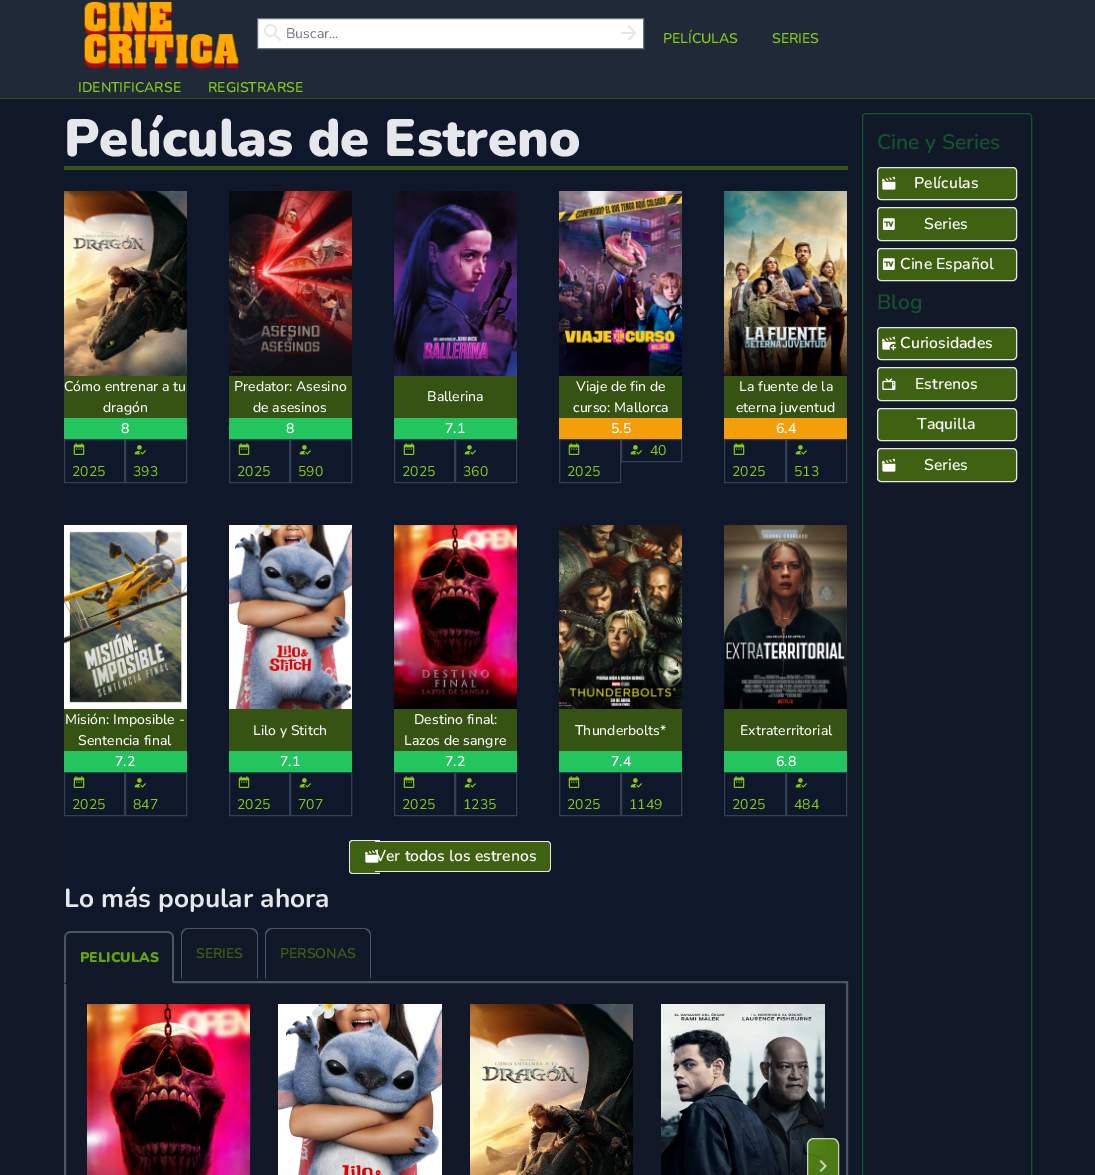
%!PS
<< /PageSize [1095 1175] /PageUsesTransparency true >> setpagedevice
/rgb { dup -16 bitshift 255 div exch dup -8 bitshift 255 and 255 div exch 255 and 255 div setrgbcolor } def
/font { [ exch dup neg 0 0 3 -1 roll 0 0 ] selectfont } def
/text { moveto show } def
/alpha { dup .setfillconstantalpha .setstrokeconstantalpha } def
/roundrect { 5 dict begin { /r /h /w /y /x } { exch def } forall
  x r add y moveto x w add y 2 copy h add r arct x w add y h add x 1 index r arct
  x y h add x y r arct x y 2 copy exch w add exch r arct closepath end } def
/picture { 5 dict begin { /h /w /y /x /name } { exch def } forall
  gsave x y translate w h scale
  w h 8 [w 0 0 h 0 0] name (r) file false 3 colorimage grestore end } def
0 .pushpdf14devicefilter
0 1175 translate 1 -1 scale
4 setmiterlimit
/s1 { /Nunito-Regular 14 font 16#6B7280 rgb } def
/s2 { /Nunito-SemiBold 14 font 16#84CC16 rgb } def
/s3 { /Nunito-Black 52.5 font 16#E5E7EB rgb } def
/s4 { /Nunito-Medium 14 font 16#FFFFFF rgb } def
/s5 { /Nunito-SemiBold 14 font 16#FFFFFF rgb } def
/s6 { /Nunito-Regular 14 font 16#84CC16 rgb } def
/s7 { /Nunito-SemiBold 15.75 font 16#FFFFFF rgb } def
/s8 { /Nunito-Bold 26.25 font 16#E5E7EB rgb } def
/s9 { /Nunito-Black 14 font 16#65A30D rgb } def
/s10 { /Nunito-SemiBold 14 font 16#3F6212 rgb } def
/s11 { /Nunito-SemiBold 21 font 16#14532D rgb } def
16#111827 rgb
0 0 1095 1175 rectfill
16#1F2937 rgb
0 0 1095 98 rectfill
16#365314 rgb
0 98 1095 1 rectfill
(pic1.raw) 84 1 155 68 picture
16#FFFFFF rgb
257.5 18.5 moveto 643.5 18.5 lineto 643.5 48.5 lineto 257.5 48.5 lineto closepath gsave fill grestore
16#6B7280 rgb
stroke
(pic2.raw) 264 24 17 17 picture
s1
(Buscar...) 286 38 text
(pic3.raw) 621 25 16 16 picture
s2
(PELÍCULAS) 663 43 text
(SERIES) 772 43 text
(IDENTIFICARSE) 78 92 text
(REGISTRARSE) 208 92 text
16#0F172A rgb
64 113 784 868 rectfill
16#365314 rgb
64 166 784 4 rectfill
s3
(Películas de Estreno) 64 156 text
(pic4.raw) 64 191 123 185 picture
16#365314 rgb
64 376 123 42 rectfill
s4
(Cómo entrenar a tu) 64 391 text
(dragón) 103 412 text
16#22C55E rgb
64 418 123 21 rectfill
s5
(8) 121 433 text
16#334155 rgb
64.5 439.5 60 43 rectstroke
(pic5.raw) 73 443 12 12 picture
s6
(2025) 72 476 text
16#334155 rgb
125.5 439.5 61 43 rectstroke
(pic6.raw) 134 445 12 10 picture
s6
(393) 133 476 text
(pic7.raw) 229 191 123 185 picture
16#365314 rgb
229 376 123 42 rectfill
s4
(Predator: Asesino) 234 391 text
(de asesinos) 253 412 text
16#22C55E rgb
229 418 123 21 rectfill
s5
(8) 286 433 text
16#334155 rgb
229.5 439.5 60 43 rectstroke
(pic5.raw) 238 443 12 12 picture
s6
(2025) 237 476 text
16#334155 rgb
290.5 439.5 61 43 rectstroke
(pic6.raw) 299 445 12 10 picture
s6
(590) 298 476 text
(pic8.raw) 394 191 123 185 picture
16#365314 rgb
394 376 123 42 rectfill
s4
(Ballerina) 427 401 text
16#22C55E rgb
394 418 123 21 rectfill
s5
(7.1) 445 433 text
16#334155 rgb
394.5 439.5 60 43 rectstroke
(pic5.raw) 403 443 12 12 picture
s6
(2025) 402 476 text
16#334155 rgb
455.5 439.5 61 43 rectstroke
(pic6.raw) 464 445 12 10 picture
s6
(360) 463 476 text
(pic9.raw) 559 191 123 185 picture
16#365314 rgb
559 376 123 42 rectfill
s4
(Viaje de fin de) 576 391 text
(curso: Mallorca) 573 412 text
16#F59E0B rgb
559 418 123 21 rectfill
s5
(5.5) 611 433 text
16#334155 rgb
621.5 439.5 60 22 rectstroke
(pic6.raw) 630 445 12 10 picture
s6
(40) 650 455 text
16#334155 rgb
559.5 439.5 61 43 rectstroke
(pic5.raw) 568 443 12 12 picture
s6
(2025) 567 476 text
(pic10.raw) 724 191 123 185 picture
16#365314 rgb
724 376 123 42 rectfill
s4
(La fuente de la) 739 391 text
(eterna juventud) 736 412 text
16#F59E0B rgb
724 418 123 21 rectfill
s5
(6.4) 776 433 text
16#334155 rgb
724.5 439.5 61 43 rectstroke
(pic5.raw) 733 443 12 12 picture
s6
(2025) 732 476 text
16#334155 rgb
786.5 439.5 60 43 rectstroke
(pic6.raw) 795 445 12 10 picture
s6
(513) 794 476 text
(pic11.raw) 64 525 123 184 picture
16#365314 rgb
64 709 123 42 rectfill
s4
(Misión: Imposible -) 65 724 text
(Sentencia final) 78 745 text
16#22C55E rgb
64 751 123 21 rectfill
s5
(7.2) 115 766 text
16#334155 rgb
64.5 772.5 60 43 rectstroke
(pic5.raw) 73 776 12 12 picture
s6
(2025) 72 809 text
16#334155 rgb
125.5 772.5 61 43 rectstroke
(pic6.raw) 134 778 12 10 picture
s6
(847) 133 809 text
(pic12.raw) 229 525 123 184 picture
16#365314 rgb
229 709 123 42 rectfill
s4
(Lilo y Stitch) 253 735 text
16#22C55E rgb
229 751 123 21 rectfill
s5
(7.1) 280 766 text
16#334155 rgb
229.5 772.5 60 43 rectstroke
(pic5.raw) 238 776 12 12 picture
s6
(2025) 237 809 text
16#334155 rgb
290.5 772.5 61 43 rectstroke
(pic6.raw) 299 778 12 10 picture
s6
(707) 298 809 text
(pic13.raw) 394 525 123 184 picture
16#365314 rgb
394 709 123 42 rectfill
s4
(Destino final:) 414 724 text
(Lazos de sangre) 404 745 text
16#22C55E rgb
394 751 123 21 rectfill
s5
(7.2) 445 766 text
16#334155 rgb
394.5 772.5 60 43 rectstroke
(pic5.raw) 403 776 12 12 picture
s6
(2025) 402 809 text
16#334155 rgb
455.5 772.5 61 43 rectstroke
(pic6.raw) 464 778 12 10 picture
s6
(1235) 463 809 text
(pic14.raw) 559 525 123 184 picture
16#365314 rgb
559 709 123 42 rectfill
s4
(Thunderbolts*) 575 735 text
16#22C55E rgb
559 751 123 21 rectfill
s5
(7.4) 611 766 text
16#334155 rgb
559.5 772.5 61 43 rectstroke
(pic5.raw) 568 776 12 12 picture
s6
(2025) 567 809 text
16#334155 rgb
621.5 772.5 60 43 rectstroke
(pic6.raw) 630 778 12 10 picture
s6
(1149) 629 809 text
(pic15.raw) 724 525 123 184 picture
16#365314 rgb
724 709 123 42 rectfill
s4
(Extraterritorial) 740 735 text
16#22C55E rgb
724 751 123 21 rectfill
s5
(6.8) 776 766 text
16#334155 rgb
724.5 772.5 61 43 rectstroke
(pic5.raw) 733 776 12 12 picture
s6
(2025) 732 809 text
16#334155 rgb
786.5 772.5 60 43 rectstroke
(pic6.raw) 795 778 12 10 picture
s6
(484) 794 809 text
16#3F6212 rgb
353 840 moveto 380 840 lineto 380 874 lineto 353 874 lineto 351 874 349 872 349 870 curveto 349 844 lineto 349 842 351 840 353 840 curveto closepath fill
16#E5E7EB rgb
352.5 840 moveto 380 840 lineto 380 874 lineto 352.5 874 lineto 350.5 874 349 872.5 349 870.5 curveto 349 843.5 lineto 349 841.5 350.5 840 352.5 840 curveto closepath 352.5 841 moveto 380 841 lineto 380 873 lineto 352.5 873 lineto 351 873 350 872 350 870.5 curveto 350 843.5 lineto 350 842 351 841 352.5 841 curveto closepath eofill
16#3F6212 rgb
375 841 moveto 547 841 lineto 549 841 551 843 551 845 curveto 551 868 lineto 551 870 549 872 547 872 curveto 375 872 lineto closepath fill
16#E5E7EB rgb
375 841 moveto 548 841 lineto 549 841 551 843 551 844 curveto 551 868 lineto 551 870 549 872 548 872 curveto 375 872 lineto closepath 375 842 moveto 548 842 lineto 549 842 550 843 550 844 curveto 550 868 lineto 550 870 549 871 548 871 curveto 375 871 lineto closepath eofill
s7
(Ver todos los estrenos) 375 861 text
(pic16.raw) 365 849 14 14 picture
s8
(Lo más popular ahora) 64 907 text
16#4B5563 rgb
2 setlinewidth
65 982 782 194 rectstroke
16#111827 rgb
71 931 moveto 167 931 lineto 171 931 174 934 174 938 curveto 174 984 lineto 64 984 lineto 64 938 lineto 64 934 67 931 71 931 curveto closepath fill
16#4B5563 rgb
71 931 moveto 69 931 67 932 66 933 curveto 67 934 lineto 70 933 lineto 168 933 lineto 171 934 lineto 172 933 lineto 171 932 169 931 167 931 curveto closepath fill
174 984 moveto 174 938 lineto 174 936 173 934 172 933 curveto 171 934 lineto 172 935 172 936 172 938 curveto 172 982 lineto closepath fill
16#111827 rgb
174 984 moveto 172 982 lineto 66 982 lineto 64 984 lineto closepath fill
16#4B5563 rgb
64 984 moveto 66 982 lineto 66 938 lineto 66 936 66 935 67 934 curveto 66 933 lineto 65 934 64 936 64 938 curveto closepath fill
s9
(PELICULAS) 80 962 text
16#111827 rgb
188 928 moveto 251 928 lineto 255 928 258 931 258 935 curveto 258 979 lineto 181 979 lineto 181 935 lineto 181 931 184 928 188 928 curveto closepath fill
16#4B5563 rgb
188 928 moveto 186 928 184 929 183 930 curveto 184 931 lineto 185 930 186 929 188 929 curveto 251 929 lineto 252 929 254 930 255 931 curveto 256 930 lineto 255 929 253 928 251 928 curveto closepath fill
258 979 moveto 258 935 lineto 258 933 257 931 256 930 curveto 255 931 lineto 256 932 257 934 257 935 curveto 257 978 lineto closepath fill
16#111827 rgb
258 979 moveto 257 978 lineto 182 978 lineto 181 979 lineto closepath fill
16#4B5563 rgb
181 979 moveto 182 978 lineto 182 935 lineto 182 934 183 932 184 931 curveto 183 930 lineto 182 931 181 933 181 935 curveto closepath fill
s10
(SERIES) 196 958 text
16#111827 rgb
272 928 moveto 364 928 lineto 368 928 371 931 371 935 curveto 371 979 lineto 265 979 lineto 265 935 lineto 265 931 268 928 272 928 curveto closepath fill
16#4B5563 rgb
272 928 moveto 270 928 268 929 267 930 curveto 268 931 lineto 271 929 lineto 365 929 lineto 368 931 lineto 369 930 lineto 368 929 366 928 364 928 curveto closepath fill
371 979 moveto 371 935 lineto 371 933 370 931 369 930 curveto 368 931 lineto 369 932 370 934 370 935 curveto 370 978 lineto closepath fill
16#111827 rgb
371 979 moveto 370 978 lineto 266 978 lineto 265 979 lineto closepath fill
16#4B5563 rgb
265 979 moveto 266 978 lineto 266 935 lineto 266 934 267 932 268 931 curveto 267 930 lineto 266 931 265 933 265 935 curveto closepath fill
s10
(PERSONAS) 280 958 text
(pic17.raw) 87 1004 163 171 picture
(pic18.raw) 278 1004 164 171 picture
(pic19.raw) 470 1004 163 171 picture
(pic20.raw) 661 1004 164 171 picture
0.7 alpha
16#65A30D rgb
807 1138 32 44 7 roundrect fill
16#FFFFFF rgb
1 setlinewidth
807.5 1138.5 31 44 6.5 roundrect stroke
1 alpha
(pic21.raw) 819 1160 8 12 picture
16#14532D rgb
862.5 113.5 169 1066 3.5 roundrect stroke
s11
(Cine y Series) 877 149 text
16#3F6212 rgb
877.5 167.5 139 32 3.5 roundrect gsave fill grestore
16#E5E7EB rgb
stroke
(pic22.raw) 882 176 14 14 picture
s7
(Películas) 914 188 text
16#3F6212 rgb
877.5 207.5 139 33 3.5 roundrect gsave fill grestore
16#E5E7EB rgb
stroke
(pic23.raw) 882 218 13 12 picture
s7
(Series) 924 229 text
16#3F6212 rgb
877.5 248.5 139 32 3.5 roundrect gsave fill grestore
16#E5E7EB rgb
stroke
(pic23.raw) 882 258 13 12 picture
s7
(Cine Español) 900 269 text
s11
(Blog) 877 309 text
16#3F6212 rgb
877.5 327.5 139 32 3.5 roundrect gsave fill grestore
16#E5E7EB rgb
stroke
(pic24.raw) 882 336 15 15 picture
s7
(Curiosidades) 900 348 text
16#3F6212 rgb
877.5 367.5 139 33 3.5 roundrect gsave fill grestore
16#E5E7EB rgb
stroke
(pic25.raw) 882 378 14 12 picture
s7
(Estrenos) 915 389 text
16#3F6212 rgb
877.5 408.5 139 32 3.5 roundrect gsave fill grestore
16#E5E7EB rgb
stroke
s7
(Taquilla) 917 429 text
16#3F6212 rgb
877.5 448.5 139 33 3.5 roundrect gsave fill grestore
16#E5E7EB rgb
stroke
(pic22.raw) 882 458 14 14 picture
s7
(Series) 924 470 text
.poppdf14devicefilter showpage
